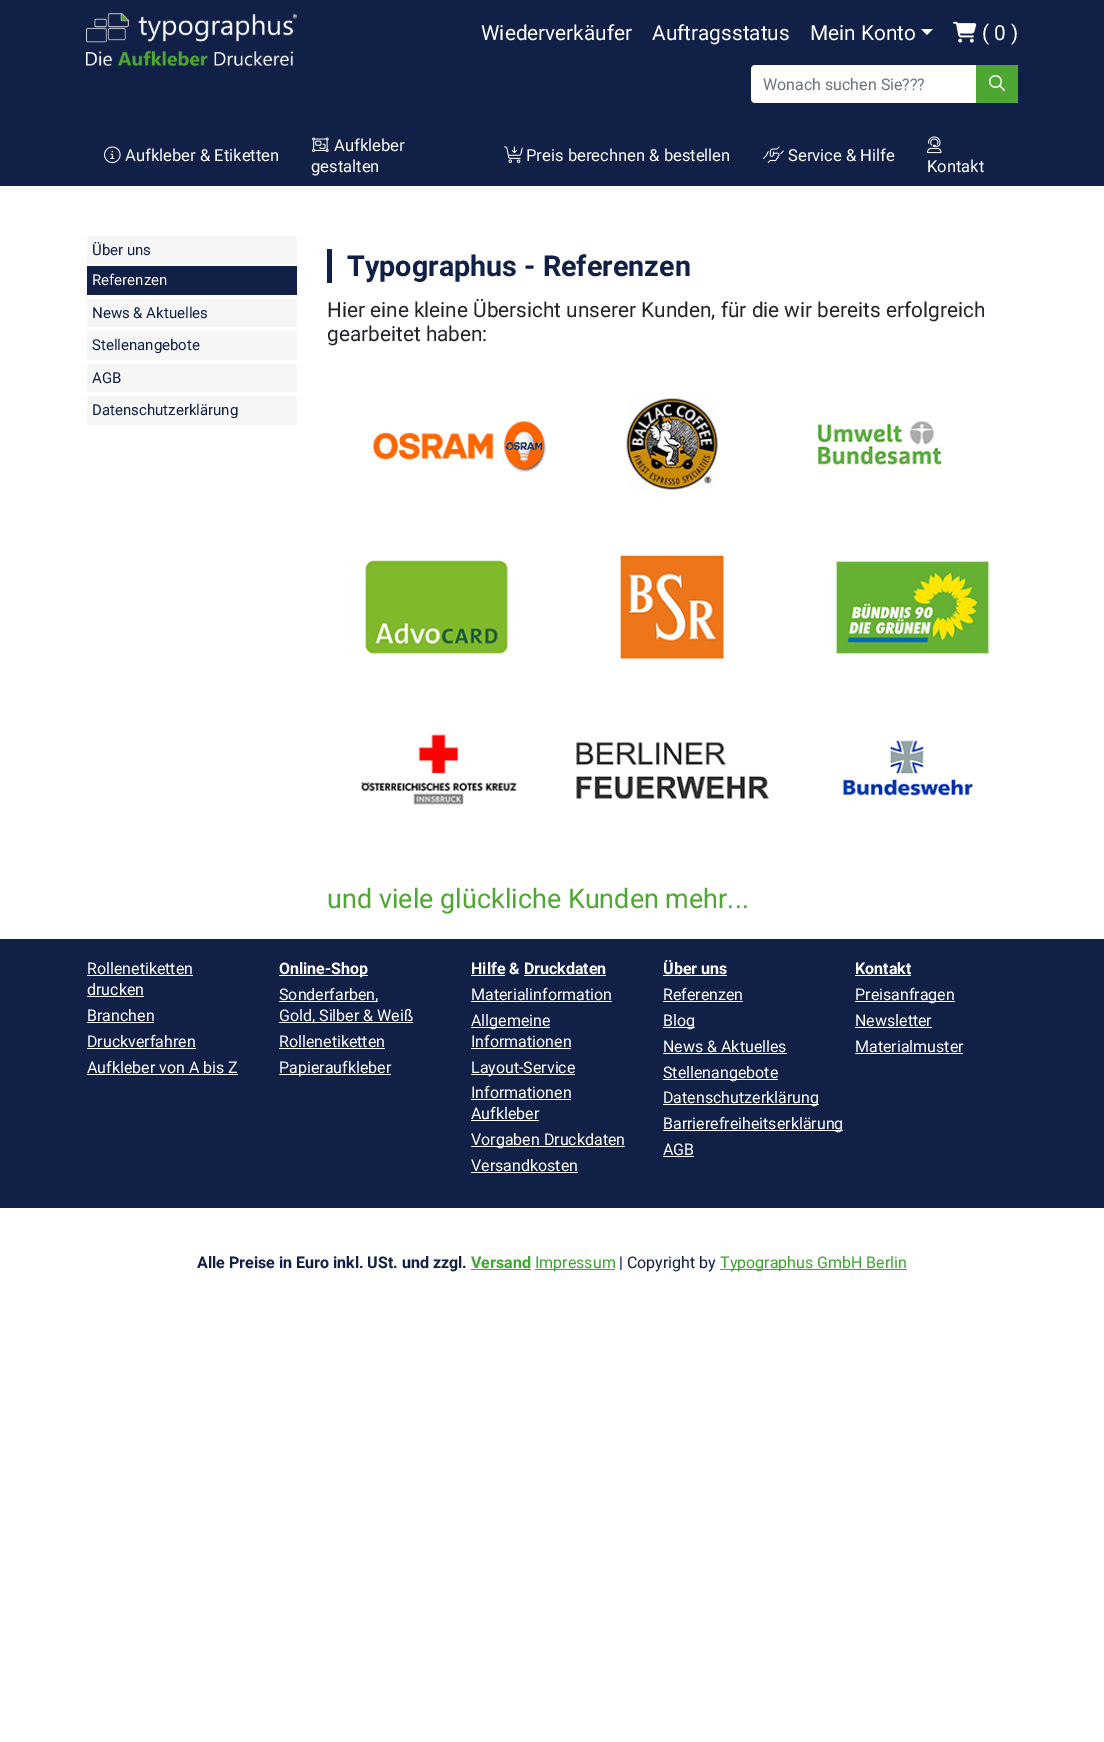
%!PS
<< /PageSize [1104 1742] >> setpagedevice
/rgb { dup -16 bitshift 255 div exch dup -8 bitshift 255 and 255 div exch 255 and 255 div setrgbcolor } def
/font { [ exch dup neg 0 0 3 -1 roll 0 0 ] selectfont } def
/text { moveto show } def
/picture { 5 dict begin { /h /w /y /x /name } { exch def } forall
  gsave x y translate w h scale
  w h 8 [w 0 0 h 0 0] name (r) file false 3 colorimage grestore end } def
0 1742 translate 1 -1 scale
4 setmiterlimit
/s1 { /Roboto-Regular 20.8 font 16#FFFFFF rgb } def
/s2 { /Roboto-Regular 16 font 16#6C757D rgb } def
/s3 { /Roboto-Regular 16.6 font 16#FFFFFF rgb } def
/s4 { /Roboto-Regular 15 font 16#102047 rgb } def
/s5 { /Roboto-Regular 15 font 16#F6F6F6 rgb } def
/s6 { /Roboto-Bold 28.75 font 16#102047 rgb } def
/s7 { /Roboto-Regular 20.8 font 16#212529 rgb } def
/s8 { /Roboto-Regular 27 font 16#4EA732 rgb } def
/s9 { /Roboto-Regular 16 font 16#FFFFFF rgb } def
/s10 { /Roboto-Bold 16 font 16#FFFFFF rgb } def
/s11 { /Roboto-Bold 16 font 16#102047 rgb } def
/s12 { /Roboto-Bold 16 font 16#3EA732 rgb } def
/s13 { /Roboto-Regular 16 font 16#3EA732 rgb } def
/s14 { /Roboto-Regular 16 font 16#102047 rgb } def
16#FFFFFF rgb
0 0 1104 1742 rectfill
16#102047 rgb
0 0 1104 186 rectfill
(pic1.raw) 86 13 211 53 picture
s1
(Wiederverkäufer) 481 40 text
(Auftragsstatus) 652 40 text
(Mein Konto) 810 40 text
921 29 moveto 933 29 lineto 927 35 lineto closepath fill
(pic2.raw) 953 21 24 22 picture
(\( 0 \)) 982 40 text
755 65 moveto 977 65 lineto 977 103 lineto 755 103 lineto 753 103 751 101 751 99 curveto 751 69 lineto 751 67 753 65 755 65 curveto closepath fill
s2
(Wonach suchen Sie???) 763 90 text
16#4EA732 rgb
976 65 42 38 rectfill
(pic3.raw) 989 75 16 16 picture
(pic4.raw) 104 146 17 18 picture
s3
(Aufkleber & Etiketten) 125 161 text
(pic5.raw) 312 137 17 15 picture
(Aufkleber) 334 151 text
(gestalten) 311 172 text
(pic6.raw) 504 146 19 18 picture
(Preis berechnen & bestellen) 526 161 text
(pic7.raw) 763 146 21 17 picture
(Service & Hilfe) 788 161 text
(pic8.raw) 927 136 15 18 picture
(Kontakt) 927 172 text
16#F6F6F6 rgb
87 236 210 28 rectfill
s4
(Über uns) 92 255 text
87 266 210 29 rectfill
s5
(Referenzen) 92 285 text
87 299 210 28 rectfill
s4
(News & Aktuelles) 92 318 text
16#F6F6F6 rgb
87 331 210 29 rectfill
s4
(Stellenangebote) 92 350 text
16#F6F6F6 rgb
87 364 210 28 rectfill
s4
(AGB) 92 383 text
16#F6F6F6 rgb
87 396 210 29 rectfill
s4
(Datenschutzerklärung) 92 415 text
327 249 5 34 rectfill
s6
(Typographus - Referenzen) 347 276 text
s7
(Hier eine kleine Übersicht unserer Kunden, für die wir bereits erfolgreich) 327 317 text
(gearbeitet haben:) 327 341 text
(pic9.raw) 373 398 572 92 picture
(pic10.raw) 365 554 624 106 picture
(pic11.raw) 361 734 612 71 picture
s8
(und viele glückliche Kunden mehr...) 327 908 text
16#102047 rgb
0 939 1104 269 rectfill
s9
(Rollenetiketten) 87 974 text
87 975 106 1 rectfill
(drucken) 87 995 text
87 996 57 1 rectfill
(Branchen) 87 1021 text
87 1022 67 1 rectfill
(Druckverfahren) 87 1047 text
87 1048 109 1 rectfill
(Aufkleber von A bis Z) 87 1073 text
87 1074 151 1 rectfill
279 975 89 1 rectfill
s10
(Online-Shop) 279 974 text
279 1001 99 1 rectfill
s9
(Sonderfarben,) 279 1000 text
279 1022 134 1 rectfill
(Gold, Silber & Weiß) 279 1021 text
(Rollenetiketten) 279 1047 text
279 1048 106 1 rectfill
279 1074 112 1 rectfill
(Papieraufkleber) 279 1073 text
s10
(Hilfe & Druckdaten) 471 974 text
471 975 34 1 rectfill
524 975 82 1 rectfill
s9
(Materialinformation) 471 1000 text
471 1001 141 1 rectfill
471 1027 79 1 rectfill
(Allgemeine) 471 1026 text
(Informationen) 471 1047 text
471 1048 100 1 rectfill
471 1074 104 1 rectfill
(Layout-Service) 471 1073 text
(Informationen) 471 1098 text
471 1099 100 1 rectfill
(Aufkleber) 471 1119 text
471 1120 68 1 rectfill
471 1146 154 1 rectfill
(Vorgaben Druckdaten) 471 1145 text
(Versandkosten) 471 1171 text
471 1172 107 1 rectfill
s10
(Über uns) 663 974 text
663 975 64 1 rectfill
s9
(Referenzen) 663 1000 text
663 1001 80 1 rectfill
663 1027 32 1 rectfill
(Blog) 663 1026 text
(News & Aktuelles) 663 1052 text
663 1053 124 1 rectfill
663 1079 115 1 rectfill
(Stellenangebote) 663 1078 text
663 1104 156 1 rectfill
(Datenschutzerklärung) 663 1103 text
663 1130 180 1 rectfill
(Barrierefreiheitserklärung) 663 1129 text
(AGB) 663 1155 text
663 1156 31 1 rectfill
s10
(Kontakt) 855 974 text
855 975 56 1 rectfill
855 1001 100 1 rectfill
s9
(Preisanfragen) 855 1000 text
(Newsletter) 855 1026 text
855 1027 77 1 rectfill
(Materialmuster) 855 1052 text
855 1053 108 1 rectfill
s11
(Alle Preise in Euro inkl. USt. und zzgl.) 197 1268 text
s12
(Versand) 471 1268 text
471 1269 60 1 rectfill
535 1269 80 1 rectfill
s13
(Impressum) 535 1268 text
s14
(| Copyright by) 619 1268 text
16#3EA732 rgb
720 1269 187 1 rectfill
(Typographus GmbH Berlin) 720 1268 text
showpage
